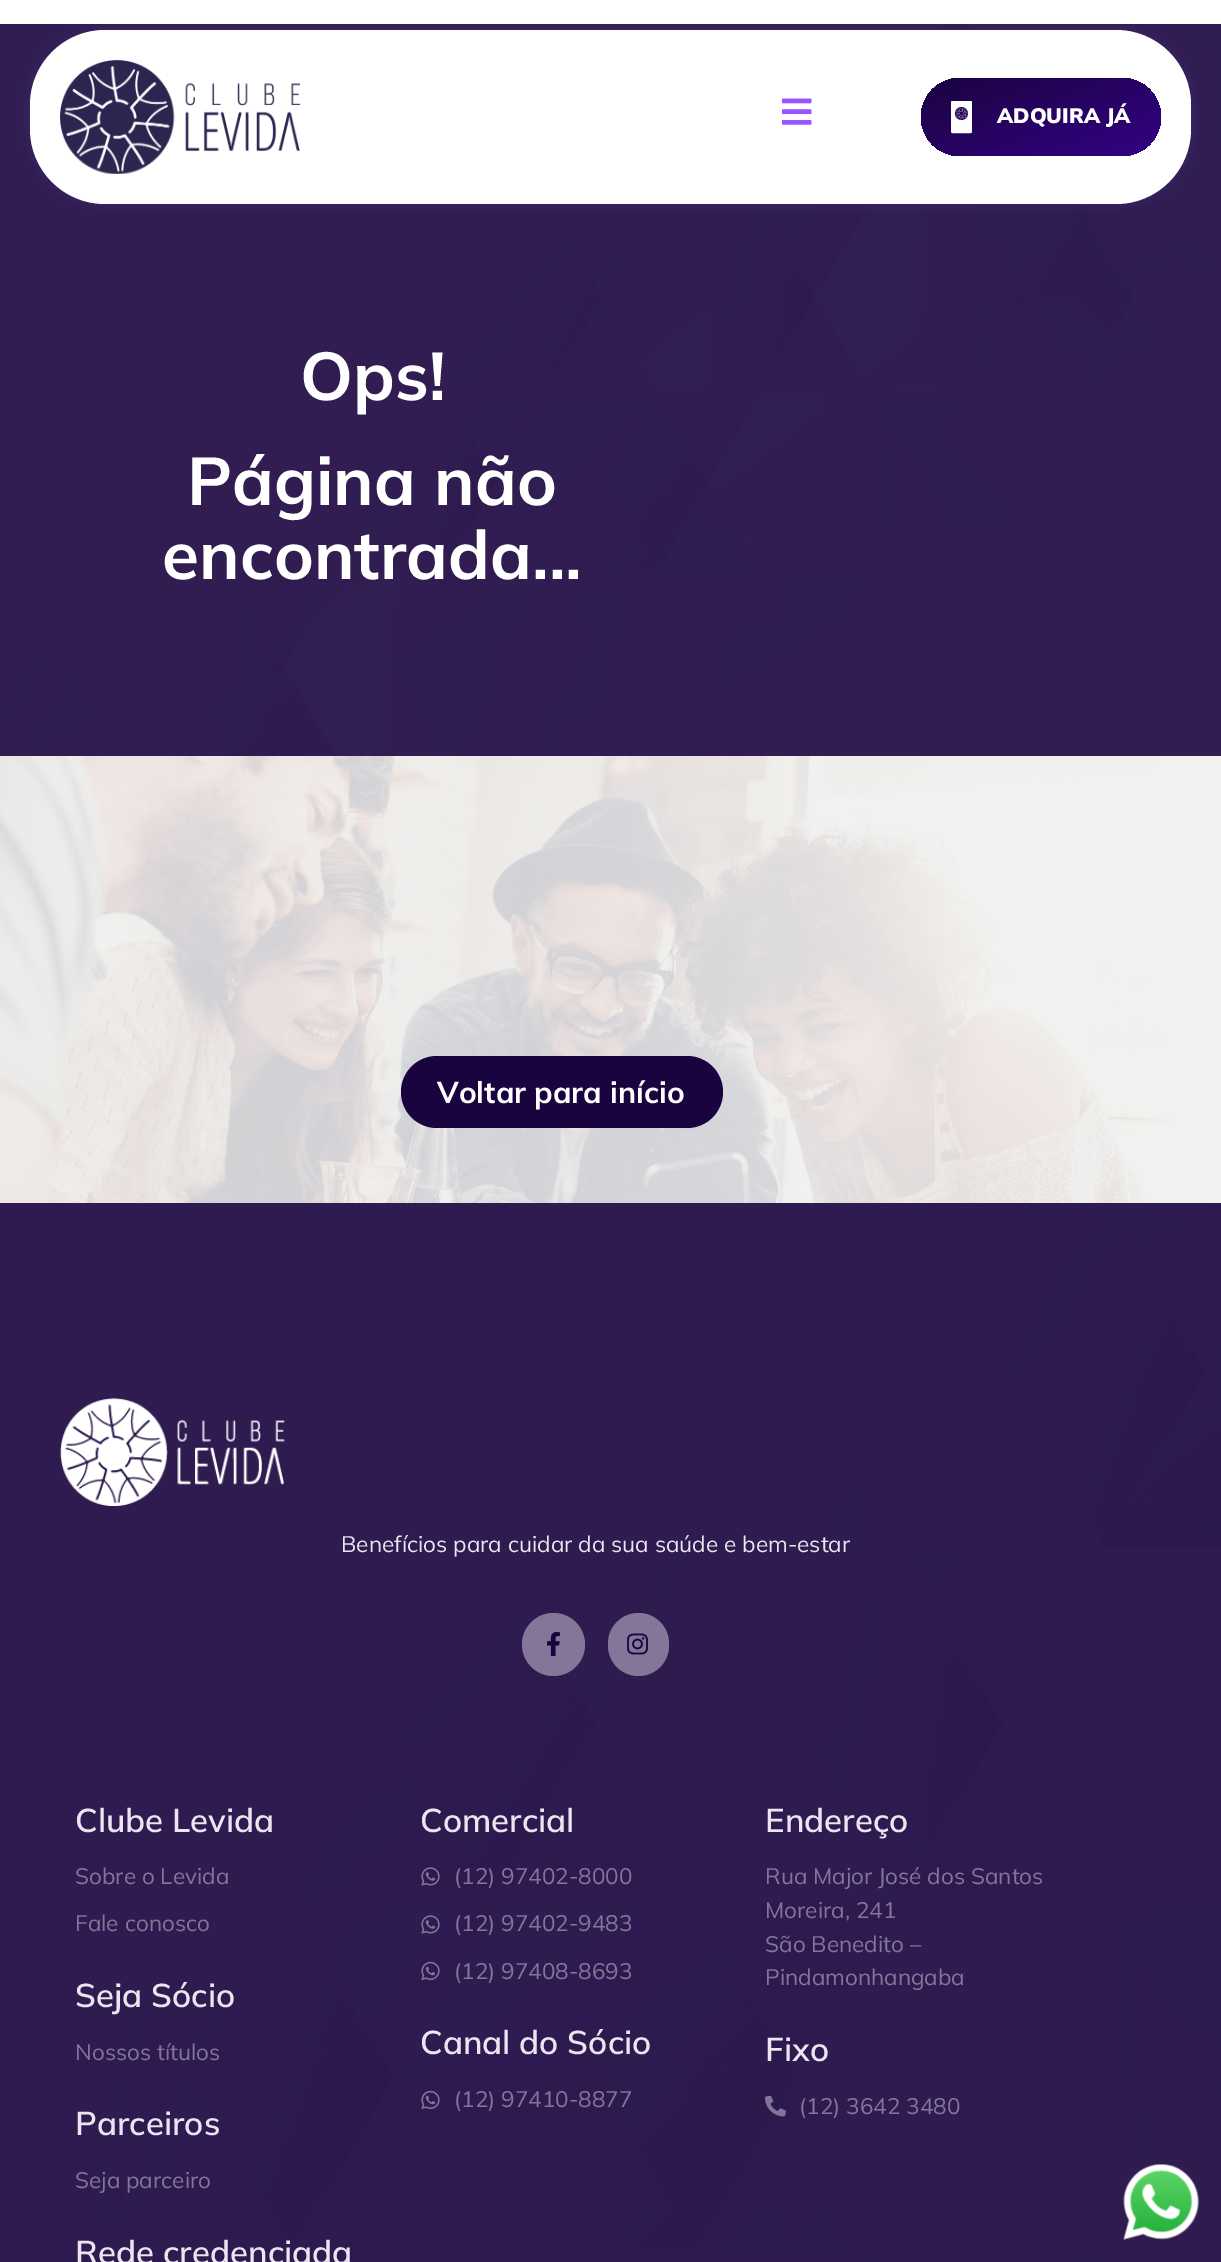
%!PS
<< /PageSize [1221 2262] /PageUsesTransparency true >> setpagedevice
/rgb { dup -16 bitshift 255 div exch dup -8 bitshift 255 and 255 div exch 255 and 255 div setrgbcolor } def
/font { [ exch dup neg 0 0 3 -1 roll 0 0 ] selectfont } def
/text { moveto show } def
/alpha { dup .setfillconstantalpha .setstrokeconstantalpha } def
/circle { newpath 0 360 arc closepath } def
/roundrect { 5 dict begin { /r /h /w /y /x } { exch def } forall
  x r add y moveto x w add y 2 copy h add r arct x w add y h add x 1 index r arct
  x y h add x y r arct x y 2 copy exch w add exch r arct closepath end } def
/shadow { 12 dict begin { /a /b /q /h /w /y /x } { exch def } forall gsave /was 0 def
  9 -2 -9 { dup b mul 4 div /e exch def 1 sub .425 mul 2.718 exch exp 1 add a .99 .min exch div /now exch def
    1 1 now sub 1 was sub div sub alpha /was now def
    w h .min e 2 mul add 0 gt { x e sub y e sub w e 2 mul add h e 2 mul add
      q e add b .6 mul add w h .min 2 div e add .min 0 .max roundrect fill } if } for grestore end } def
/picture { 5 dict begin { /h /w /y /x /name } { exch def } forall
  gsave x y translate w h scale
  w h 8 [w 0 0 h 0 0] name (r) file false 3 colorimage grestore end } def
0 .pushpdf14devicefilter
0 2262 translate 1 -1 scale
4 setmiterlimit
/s1 { /Mulish-Black 21 font 16#FFFFFF rgb } def
/s2 { /Mulish-Bold 67.5 font 16#FFFFFF rgb } def
/s3 { /Mulish-Bold 30 font 16#FFFFFF rgb } def
/s4 { /Mulish-Regular 22.5 font 16#EAE5F1 rgb } def
/s5 { /Mulish-SemiBold 33 font 16#EAE5F1 rgb } def
/s6 { /Mulish-Regular 22.5 font 16#837699 rgb } def
16#FFFFFF rgb
0 0 1221 2262 rectfill
(pic4.raw) 0 24 1221 732 picture
16#9E9ADD rgb
30 30 1161 174 75 7.5 0.12 shadow
16#FFFFFF rgb
30 30 1161 174 75 roundrect fill
(pic1.raw) 60 60 240 114 picture
(pic2.raw) 782 98 30 27 picture
gsave 921 78 240 78 39 roundrect clip newpath
<< /ShadingType 2 /ColorSpace /DeviceRGB /Coords [1068 190 1014 44] /Extend [true true] /Function << /FunctionType 2 /Domain [0 1] /C0 [0.2 0.008 0.522] /C1 [0.102 0.016 0.247] /N 1 >> >> shfill grestore
(pic3.raw) 951 101 21 33 picture
s1
(ADQUIRA JÁ) 997 123 text
s2
(Ops!) 300 400 text
(Página não) 187 505 text
(encontrada...) 162 579 text
(pic5.raw) 0 756 1221 447 picture
16#1A043F rgb
401 1056 322 72 36 roundrect fill
s3
(Voltar para início) 437 1103 text
(pic6.raw) 0 1203 1221 1059 picture
(pic7.raw) 60 1398 225 108 picture
s4
(Benefícios para cuidar da sua saúde e bem-estar) 341 1552 text
16#837698 rgb
553.5 1644.5 31.5 circle fill
(pic8.raw) 547 1632 13 24 picture
608 1613 61 63 30.5 roundrect fill
(pic9.raw) 627 1633 21 22 picture
s5
(Clube Levida) 75 1832 text
s6
(Sobre o Levida) 75 1884 text
(Fale conosco) 75 1931 text
s5
(Seja Sócio) 75 2007 text
s6
(Nossos títulos) 75 2060 text
s5
(Parceiros) 75 2135 text
s6
(Seja parceiro) 75 2188 text
s5
(Rede credenciada) 75 2264 text
(Comercial) 420 1832 text
(pic10.raw) 421 1867 19 19 picture
s6
(\(12\) 97402-8000) 454 1884 text
(pic11.raw) 421 1915 19 19 picture
(\(12\) 97402-9483) 454 1931 text
(pic12.raw) 421 1961 19 20 picture
(\(12\) 97408-8693) 454 1979 text
s5
(Canal do Sócio) 420 2054 text
(pic13.raw) 421 2090 19 20 picture
s6
(\(12\) 97410-8877) 454 2107 text
s5
(Endereço) 765 1832 text
s6
(Rua Major José dos Santos) 765 1884 text
(Moreira, 241) 765 1918 text
(São Benedito –) 765 1952 text
(Pindamonhangaba) 765 1985 text
s5
(Fixo) 765 2061 text
(pic14.raw) 765 2096 21 21 picture
s6
(\(12\) 3642 3480) 799 2114 text
(pic15.raw) 1123 2164 76 76 picture
.poppdf14devicefilter showpage
